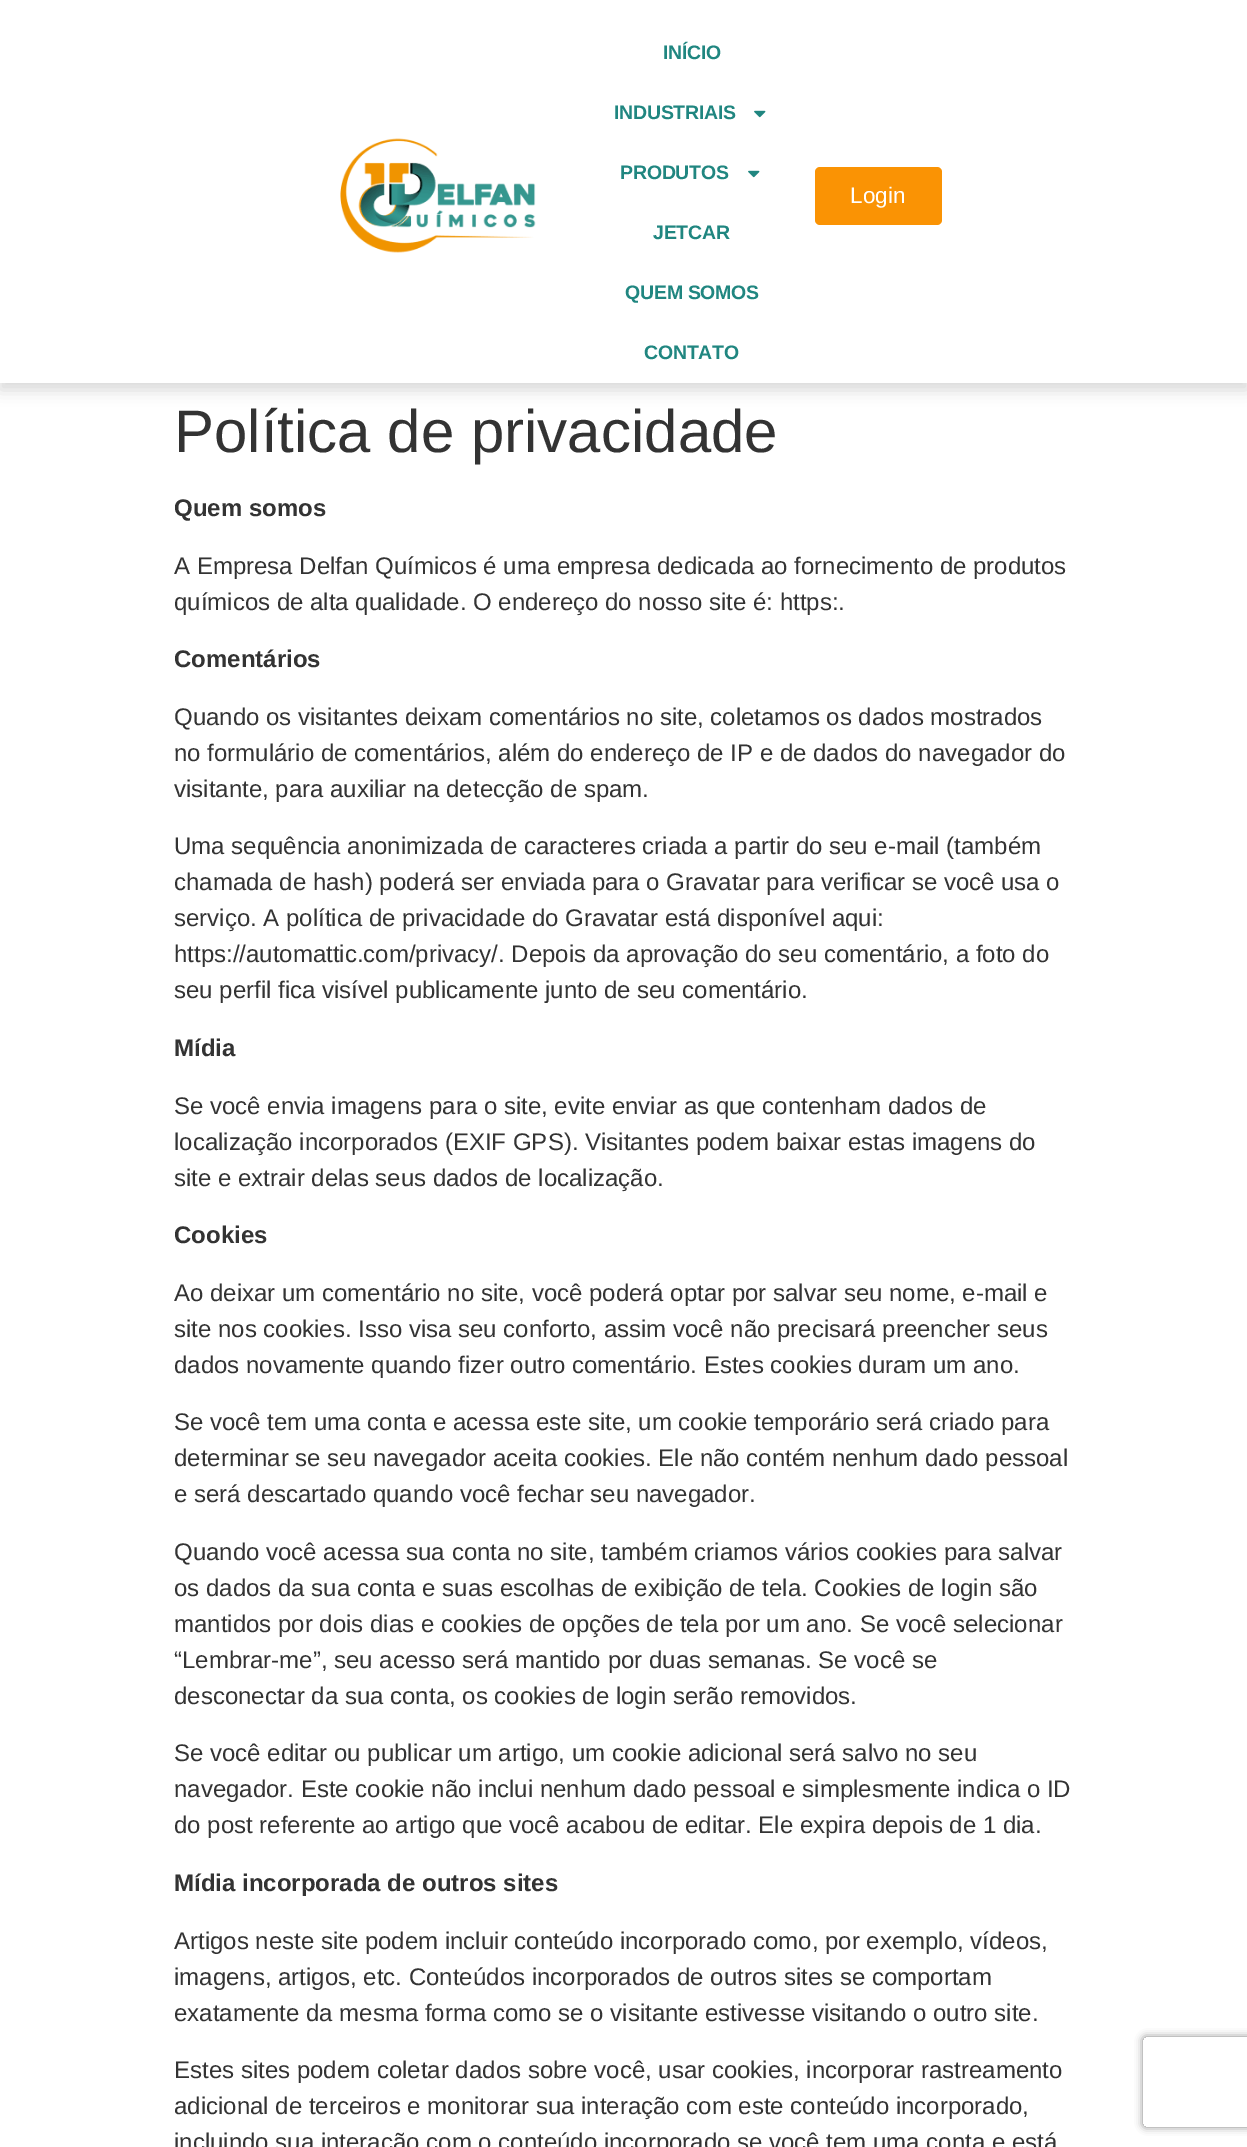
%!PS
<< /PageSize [1247 2147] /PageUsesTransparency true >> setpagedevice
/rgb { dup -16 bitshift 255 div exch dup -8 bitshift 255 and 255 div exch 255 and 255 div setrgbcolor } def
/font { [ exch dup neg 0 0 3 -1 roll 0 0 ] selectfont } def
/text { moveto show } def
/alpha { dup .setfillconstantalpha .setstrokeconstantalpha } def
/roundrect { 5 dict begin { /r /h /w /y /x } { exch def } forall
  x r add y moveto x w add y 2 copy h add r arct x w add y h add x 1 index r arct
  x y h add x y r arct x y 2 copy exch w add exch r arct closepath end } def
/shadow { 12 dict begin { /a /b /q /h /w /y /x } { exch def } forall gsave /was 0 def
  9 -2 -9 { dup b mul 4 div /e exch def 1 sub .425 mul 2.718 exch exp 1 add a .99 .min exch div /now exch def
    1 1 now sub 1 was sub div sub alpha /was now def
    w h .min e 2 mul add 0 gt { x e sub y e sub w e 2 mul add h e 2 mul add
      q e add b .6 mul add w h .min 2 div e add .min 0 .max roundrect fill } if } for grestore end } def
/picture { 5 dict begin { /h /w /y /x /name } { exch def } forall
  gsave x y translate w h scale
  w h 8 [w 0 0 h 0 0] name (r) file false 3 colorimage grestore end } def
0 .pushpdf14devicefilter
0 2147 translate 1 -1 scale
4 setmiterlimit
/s1 { /LiberationSans-Regular 22.5 font 16#FFFFFF rgb } def
/s2 { /LiberationSans-Regular 60 font 16#333333 rgb } def
/s3 { /LiberationSans-Bold 24 font 16#333333 rgb } def
/s4 { /LiberationSans-Regular 24 font 16#333333 rgb } def
16#FFFFFF rgb
0 0 1247 2147 rectfill
16#000000 rgb
0 8 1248 382 0 7.5 0.15 shadow
16#FFFFFF rgb
0 0 1247 383 rectfill
(pic1.raw) 340 138 196 115 picture
/LiberationSans-Bold 19.5 font
16#208680 rgb
663 59 moveto -0.25 0 (INÍCIO) ashow
614 119 moveto -0.25 0 (INDUSTRIAIS) ashow
(pic2.raw) 754 110 12 8 picture
620 179 moveto -0.25 0 (PRODUTOS) ashow
(pic2.raw) 748 170 12 8 picture
653 239 moveto -0.25 0 (JETCAR) ashow
625 299 moveto -0.25 0 (QUEM SOMOS) ashow
644 359 moveto -0.25 0 (CONTATO) ashow
16#FA9304 rgb
815 167 127 58 5 roundrect fill
s1
(Login) 850 203 text
s2
(Política de privacidade) 174 452 text
s3
(Quem somos) 174 516 text
s4
(A Empresa Delfan Químicos é uma empresa dedicada ao fornecimento de produtos) 174 574 text
(químicos de alta qualidade. O endereço do nosso site é: https:.) 174 610 text
s3
(Comentários) 174 667 text
s4
(Quando os visitantes deixam comentários no site, coletamos os dados mostrados) 174 725 text
(no formulário de comentários, além do endereço de IP e de dados do navegador do) 174 761 text
(visitante, para auxiliar na detecção de spam.) 174 797 text
(Uma sequência anonimizada de caracteres criada a partir do seu e-mail \(também) 174 854 text
(chamada de hash\) poderá ser enviada para o Gravatar para verificar se você usa o) 174 890 text
(serviço. A política de privacidade do Gravatar está disponível aqui:) 174 926 text
(https://automattic.com/privacy/. Depois da aprovação do seu comentário, a foto do) 174 962 text
(seu perfil fica visível publicamente junto de seu comentário.) 174 998 text
s3
(Mídia) 174 1056 text
s4
(Se você envia imagens para o site, evite enviar as que contenham dados de) 174 1114 text
(localização incorporados \(EXIF GPS\). Visitantes podem baixar estas imagens do) 174 1150 text
(site e extrair delas seus dados de localização.) 174 1186 text
s3
(Cookies) 174 1243 text
s4
(Ao deixar um comentário no site, você poderá optar por salvar seu nome, e-mail e) 174 1301 text
(site nos cookies. Isso visa seu conforto, assim você não precisará preencher seus) 174 1337 text
(dados novamente quando fizer outro comentário. Estes cookies duram um ano.) 174 1373 text
(Se você tem uma conta e acessa este site, um cookie temporário será criado para) 174 1430 text
(determinar se seu navegador aceita cookies. Ele não contém nenhum dado pessoal) 174 1466 text
(e será descartado quando você fechar seu navegador.) 174 1502 text
(Quando você acessa sua conta no site, também criamos vários cookies para salvar) 174 1560 text
(os dados da sua conta e suas escolhas de exibição de tela. Cookies de login são) 174 1596 text
(mantidos por dois dias e cookies de opções de tela por um ano. Se você selecionar) 174 1632 text
(“Lembrar-me”, seu acesso será mantido por duas semanas. Se você se) 174 1668 text
(desconectar da sua conta, os cookies de login serão removidos.) 174 1704 text
(Se você editar ou publicar um artigo, um cookie adicional será salvo no seu) 174 1761 text
(navegador. Este cookie não inclui nenhum dado pessoal e simplesmente indica o ID) 174 1797 text
(do post referente ao artigo que você acabou de editar. Ele expira depois de 1 dia.) 174 1833 text
s3
(Mídia incorporada de outros sites) 174 1891 text
s4
(Artigos neste site podem incluir conteúdo incorporado como, por exemplo, vídeos,) 174 1949 text
(imagens, artigos, etc. Conteúdos incorporados de outros sites se comportam) 174 1985 text
(exatamente da mesma forma como se o visitante estivesse visitando o outro site.) 174 2021 text
(Estes sites podem coletar dados sobre você, usar cookies, incorporar rastreamento) 174 2078 text
(adicional de terceiros e monitorar sua interação com este conteúdo incorporado,) 174 2114 text
(incluindo sua interação com o conteúdo incorporado se você tem uma conta e está) 174 2150 text
gsave
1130 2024 moveto 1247 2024 lineto 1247 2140 lineto 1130 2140 lineto closepath 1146 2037 moveto 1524 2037 lineto 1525.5 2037 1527 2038.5 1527 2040 curveto 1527 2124 lineto 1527 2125.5 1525.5 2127 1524 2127 curveto 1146 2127 lineto 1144.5 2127 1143 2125.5 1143 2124 curveto 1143 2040 lineto 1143 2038.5 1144.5 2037 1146 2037 curveto closepath eoclip newpath
16#808080 rgb
1143 2037 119 90 3 4 1 shadow
grestore
.poppdf14devicefilter showpage
